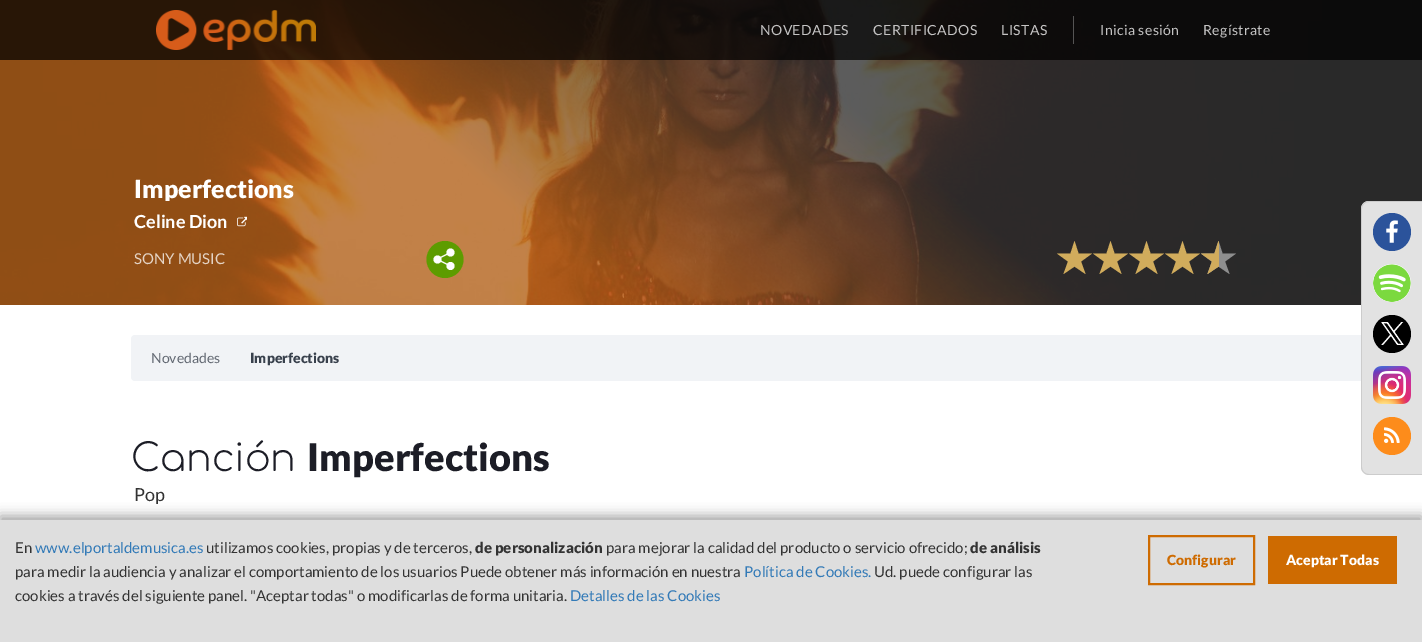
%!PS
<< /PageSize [1422 642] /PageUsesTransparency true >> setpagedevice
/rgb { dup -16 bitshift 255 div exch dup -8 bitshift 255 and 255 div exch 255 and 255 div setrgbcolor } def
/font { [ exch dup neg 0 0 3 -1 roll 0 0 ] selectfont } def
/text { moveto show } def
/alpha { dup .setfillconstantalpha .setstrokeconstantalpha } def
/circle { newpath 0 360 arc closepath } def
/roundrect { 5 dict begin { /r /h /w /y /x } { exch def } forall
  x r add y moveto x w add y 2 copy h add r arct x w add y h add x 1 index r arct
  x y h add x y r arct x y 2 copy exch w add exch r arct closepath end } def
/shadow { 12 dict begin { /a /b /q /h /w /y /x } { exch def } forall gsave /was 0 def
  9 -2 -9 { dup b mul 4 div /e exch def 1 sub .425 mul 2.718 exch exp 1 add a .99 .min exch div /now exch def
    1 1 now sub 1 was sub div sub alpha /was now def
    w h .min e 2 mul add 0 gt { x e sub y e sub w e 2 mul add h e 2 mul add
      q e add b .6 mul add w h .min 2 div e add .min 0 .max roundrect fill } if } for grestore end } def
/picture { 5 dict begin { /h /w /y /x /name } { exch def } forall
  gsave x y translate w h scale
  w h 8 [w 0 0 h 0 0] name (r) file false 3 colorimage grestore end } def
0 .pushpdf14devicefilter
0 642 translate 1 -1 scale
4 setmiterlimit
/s1 { /Lato-Black 25 font 16#FFFFFF rgb } def
/s2 { /Lato-Bold 18 font 16#FFFFFF rgb } def
/s3 { /Lato-Regular 15 font 16#E4D3C4 rgb } def
/s4 { /Lato-Regular 14 font 16#626872 rgb } def
/s5 { /Lato-Black 14 font 16#39414D rgb } def
/s6 { /Comfortaa-Light 38 font 16#1C1D26 rgb } def
/s7 { /Lato-Black 38 font 16#1C1D26 rgb } def
/s8 { /Lato-Regular 18 font 16#333333 rgb } def
/s9 { /Lato-Regular 15 font 16#333333 rgb } def
/s10 { /Lato-Regular 15 font 16#337AB7 rgb } def
/s11 { /Lato-Black 15 font 16#333333 rgb } def
/s12 { /Lato-Black 14 font 16#CE6B01 rgb } def
/s13 { /Lato-Black 14 font 16#FFFFFF rgb } def
16#FFFFFF rgb
0 0 1422 642 rectfill
gsave 0 0 moveto 1422 0 lineto 1422 305 lineto 0 305 lineto closepath clip newpath
<< /ShadingType 2 /ColorSpace /DeviceRGB /Coords [329 591 1093 -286] /Extend [true true] /Function << /FunctionType 3 /Domain [0 1] /Functions [<< /FunctionType 2 /Domain [0 1] /C0 [0.702 0.384 0.102] /C1 [0.702 0.384 0.102] /N 1 >> << /FunctionType 2 /Domain [0 1] /C0 [0.702 0.384 0.102] /C1 [0.2 0.2 0.2] /N 1 >> << /FunctionType 2 /Domain [0 1] /C0 [0.2 0.2 0.2] /C1 [0.2 0.2 0.2] /N 1 >>] /Bounds [0.35 0.61] /Encode [0 1 0 1 0 1] >> >> shfill grestore
(pic2.raw) 0 0 1422 305 picture
0.72 alpha
16#000000 rgb
0 0 1422 60 rectfill
1 alpha
(pic1.raw) 156 10 160 40 picture
/Lato-Regular 14 font
16#C4C3C3 rgb
760 35 moveto 0.4 0 (NOVEDADES) ashow
873 35 moveto 0.4 0 (CERTIFICADOS) ashow
1001 35 moveto 0.4 0 (LISTAS) ashow
16#555454 rgb
1073 16 1 28 rectfill
16#C4C3C3 rgb
1100 35 moveto 0.4 0 (Inicia sesión) ashow
1203 35 moveto 0.4 0 (Regístrate) ashow
gsave
134 176 444 25 rectclip
s1
(Imperfections) 134 198 text
grestore
s2
(Celine Dion) 134 228 text
(pic3.raw) 237 216 10 11 picture
s3
(SONY MUSIC) 134 264 text
16#5D9C00 rgb
445 259.5 18.5 circle fill
16#FFFFFF rgb
450.5 252.5 4 circle fill
437.5 259.5 4 circle fill
450.5 266 4 circle fill
449.5 253 moveto 439.5 258 lineto 438.5 260 moveto 450.5 266 lineto stroke
16#D1AC5C rgb
1074.5 241 moveto 1078.5 253.5 lineto 1092 253.5 lineto 1081 261.5 lineto 1085.5 274 lineto 1074.5 266.5 lineto 1063.5 274 lineto 1068 261.5 lineto 1057 253.5 lineto 1070.5 253.5 lineto closepath fill
1110.5 241 moveto 1114.5 253.5 lineto 1128 253.5 lineto 1117 261.5 lineto 1121.5 274 lineto 1110.5 266.5 lineto 1099.5 274 lineto 1104 261.5 lineto 1093 253.5 lineto 1106.5 253.5 lineto closepath fill
1146.5 241 moveto 1150.5 253.5 lineto 1164 253.5 lineto 1153 261.5 lineto 1157.5 274 lineto 1146.5 266.5 lineto 1135.5 274 lineto 1140 261.5 lineto 1129 253.5 lineto 1142.5 253.5 lineto closepath fill
1182.5 241 moveto 1186.5 253.5 lineto 1200 253.5 lineto 1189 261.5 lineto 1193.5 274 lineto 1182.5 266.5 lineto 1171.5 274 lineto 1176 261.5 lineto 1165 253.5 lineto 1178.5 253.5 lineto closepath fill
16#8E8E8E rgb
1218.5 241 moveto 1222.5 253.5 lineto 1236 253.5 lineto 1225 261.5 lineto 1229.5 274 lineto 1218.5 266.5 lineto 1207.5 274 lineto 1212 261.5 lineto 1201 253.5 lineto 1214.5 253.5 lineto closepath fill
gsave
1201 240 18 35 rectclip
16#D1AC5C rgb
1218.5 241 moveto 1222.5 253.5 lineto 1236 253.5 lineto 1225 261.5 lineto 1229.5 274 lineto 1218.5 266.5 lineto 1207.5 274 lineto 1212 261.5 lineto 1201 253.5 lineto 1214.5 253.5 lineto closepath fill
grestore
16#F1F3F6 rgb
131 335 1276 46 4 roundrect fill
s4
(Novedades) 151 363 text
s5
(Imperfections) 250 363 text
s6
(Canción) 131 471 text
s7
(Imperfections) 307 471 text
s8
(Pop) 134 501 text
16#E2E2E2 rgb
1369 201 moveto 1422 201 lineto 1422 475 lineto 1369 475 lineto 1364.5 475 1361 471.5 1361 467 curveto 1361 209 lineto 1361 204.5 1364.5 201 1369 201 curveto closepath fill
16#CCCCCC rgb
1369 201 moveto 1422 201 lineto 1422 475 lineto 1369 475 lineto 1365 475 1361 471 1361 467 curveto 1361 209 lineto 1361 205 1365 201 1369 201 curveto closepath 1369 202 moveto 1422 202 lineto 1422 474 lineto 1369 474 lineto 1365 474 1362 471 1362 467 curveto 1362 209 lineto 1362 205 1365 202 1369 202 curveto closepath eofill
16#2B539B rgb
1392 232 19 circle fill
(pic4.raw) 1386 220 12 23 picture
16#FFFFFF rgb
1392 283 19 circle fill
(pic5.raw) 1373 264 38 38 picture
16#000000 rgb
1392 334 19 circle fill
(pic6.raw) 1381 322 23 23 picture
(pic7.raw) 1373 366 38 38 picture
16#FD8C1B rgb
1392 436 19 circle fill
(pic8.raw) 1384 427 16 16 picture
16#000000 rgb
0 516 1422 122 0 6 0.37 shadow
16#DEDEDE rgb
0 520 1422 122 rectfill
s9
(En) 15 553 text
s10
(www.elportaldemusica.es) 35 553 text
s9
(utilizamos cookies, propias y de terceros,) 206 553 text
s11
(de personalización) 475 553 text
s9
(para mejorar la calidad del producto o servicio ofrecido;) 606 553 text
s11
(de análisis) 970 553 text
s9
(para medir la audiencia y analizar el comportamiento de los usuarios Puede obtener más información en nuestra) 15 577 text
s10
(Política de Cookies.) 744 577 text
s9
(Ud. puede configurar las) 874 577 text
(cookies a través del siguiente panel. "Aceptar todas" o modificarlas de forma unitaria.) 15 601 text
s10
(Detalles de las Cookies) 570 601 text
16#CE6B01 rgb
2 setlinewidth
1149 536 105 48 rectstroke
s12
(Configurar) 1167 565 text
1268 536 129 48 rectfill
s13
(Aceptar Todas) 1286 565 text
.poppdf14devicefilter showpage
